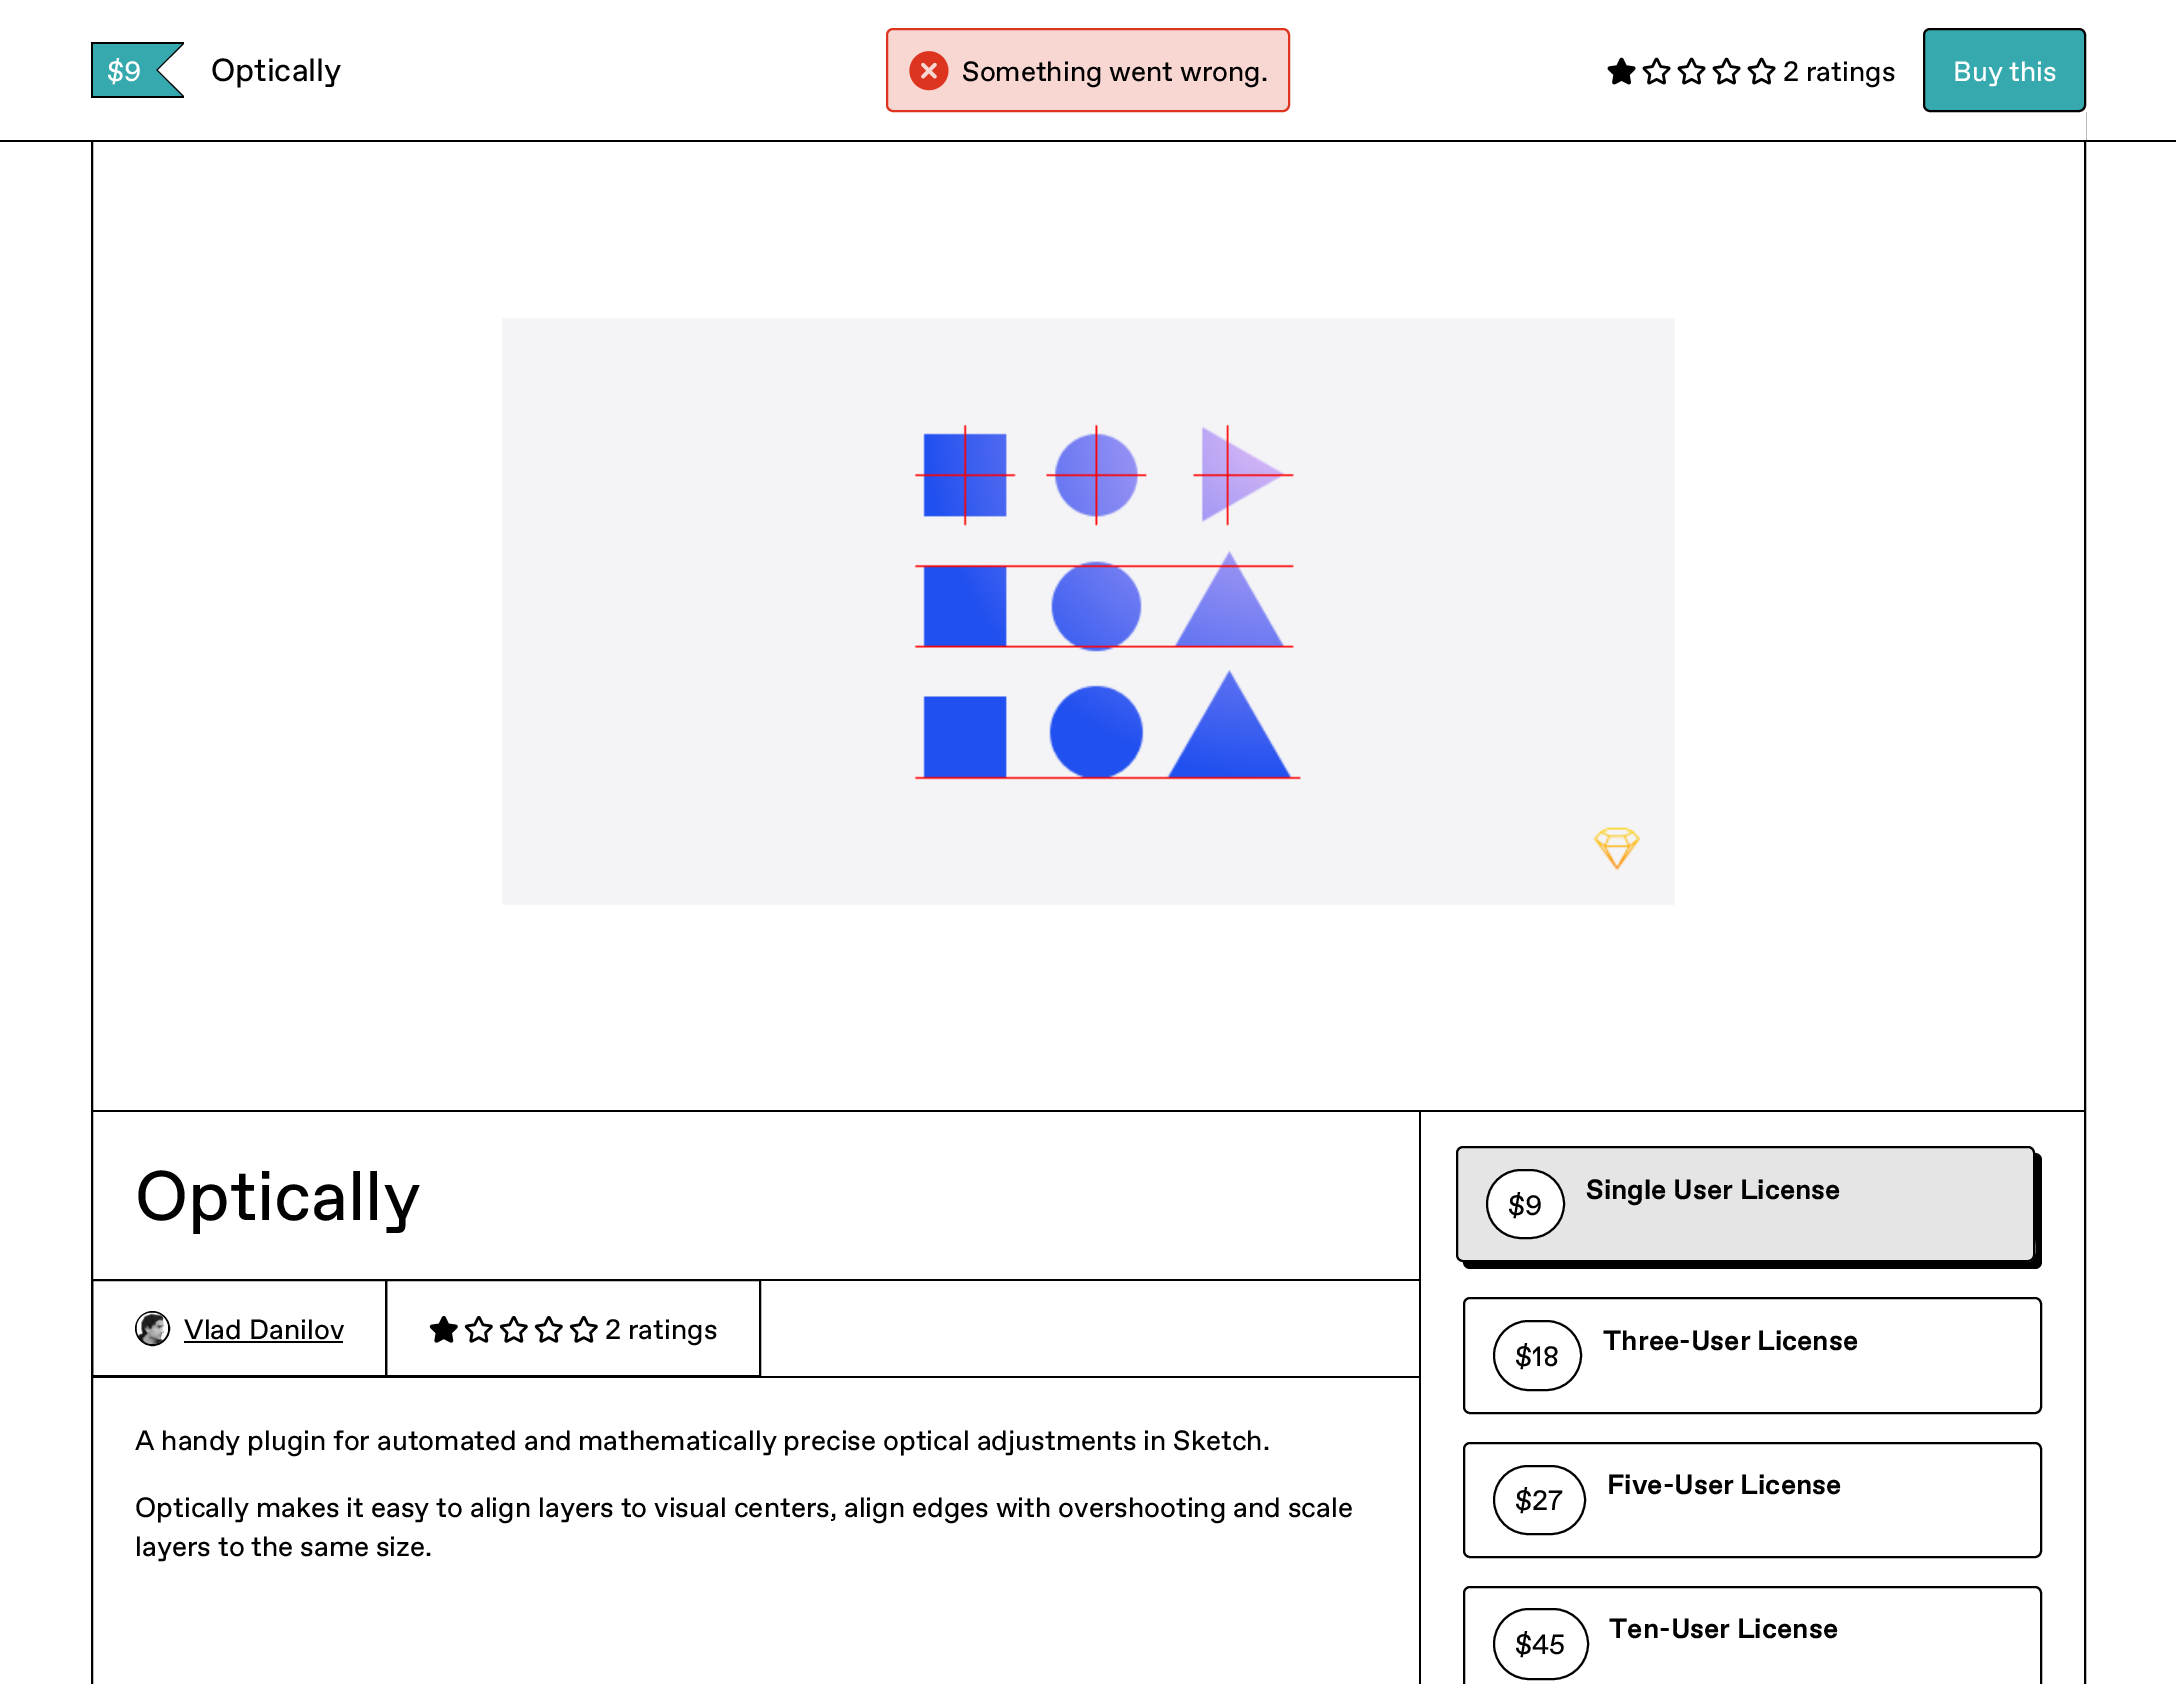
%!PS
<< /PageSize [2176 1684] /PageUsesTransparency true >> setpagedevice
/rgb { dup -16 bitshift 255 div exch dup -8 bitshift 255 and 255 div exch 255 and 255 div setrgbcolor } def
/font { [ exch dup neg 0 0 3 -1 roll 0 0 ] selectfont } def
/text { moveto show } def
/alpha { dup .setfillconstantalpha .setstrokeconstantalpha } def
/circle { newpath 0 360 arc closepath } def
/roundrect { 5 dict begin { /r /h /w /y /x } { exch def } forall
  x r add y moveto x w add y 2 copy h add r arct x w add y h add x 1 index r arct
  x y h add x y r arct x y 2 copy exch w add exch r arct closepath end } def
/picture { 5 dict begin { /h /w /y /x /name } { exch def } forall
  gsave x y translate w h scale
  w h 8 [w 0 0 h 0 0] name (r) file false 3 colorimage grestore end } def
0 .pushpdf14devicefilter
0 1684 translate 1 -1 scale
4 setmiterlimit
/s1 { /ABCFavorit-Regular 28 font 16#FFFFFF rgb } def
/s2 { /ABCFavorit-Regular 32 font 16#000000 rgb } def
/s3 { /ABCFavorit-Regular 28 font 16#000000 rgb } def
/s4 { /ABCFavorit-Regular 70 font 16#000000 rgb } def
/s5 { /ABCFavorit-Bold 28 font 16#000000 rgb } def
16#FFFFFF rgb
0 0 2176 1684 rectfill
16#000000 rgb
2 setlinewidth
92 113 1993 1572 rectstroke
0 140 2176 2 rectfill
16#FFFFFF rgb
91 112 1995 28 rectfill
16#000000 rgb
91 42 93 2 rectfill
91 96 93 2 rectfill
91 42 2 56 rectfill
16#36A9AE rgb
93 44 63 52 rectfill
16#000000 rgb
156 44 moveto 184 44 lineto 157.5 70 lineto closepath 184 96 moveto 156 96 lineto 157.5 70 lineto closepath fill
156 68 2 4 rectfill
16#36A9AE rgb
154 44 moveto 182 44 lineto 156 70 lineto closepath 182 96 moveto 154 96 lineto 156 70 lineto closepath fill
s1
($9) 107 81 text
s2
(Optically) 211 81 text
(pic1.raw) 1607 57 29 28 picture
(pic2.raw) 1642 57 29 28 picture
(pic2.raw) 1677 57 29 28 picture
(pic2.raw) 1712 57 29 28 picture
(pic2.raw) 1747 57 29 28 picture
s3
(2 ratings) 1783 81 text
16#36A9AE rgb
1924 29 161 82 6 roundrect gsave fill grestore
16#000000 rgb
stroke
s1
(Buy this) 1953 81 text
16#000000 rgb
1419 1111 2 573 rectfill
93 1110 1991 2 rectfill
(pic3.raw) 502 318 1173 587 picture
s4
(Optically) 135 1220 text
761 1279 658 2 rectfill
93 1376 1326 2 rectfill
92 1280 294 96 rectstroke
152.5 1328.5 16.5 circle stroke
(pic4.raw) 136 1312 32 32 picture
s3
(Vlad Danilov) 184 1339 text
184 1341 159 2 rectfill
386 1280 374 96 rectstroke
(pic5.raw) 429 1315 29 28 picture
(pic6.raw) 464 1315 29 28 picture
(pic6.raw) 499 1315 29 28 picture
(pic6.raw) 534 1315 29 28 picture
(pic6.raw) 569 1315 29 28 picture
(2 ratings) 605 1339 text
(A handy plugin for automated and mathematically precise optical adjustments in Sketch.) 135 1450 text
(Optically makes it easy to align layers to visual centers, align edges with overshooting and scale) 135 1517 text
(layers to the same size.) 135 1556 text
1463 1262 moveto 1463 1266 1466 1269 1470 1269 curveto 2035 1269 lineto 2039 1269 2042 1266 2042 1262 curveto 2042 1160 lineto 2042 1156 2039 1153 2035 1153 curveto 2035 1238 lineto 2035 1242 2039 1262 2028 1262 curveto closepath fill
0.1 alpha
1457 1147 577 114 6 roundrect fill
1 alpha
1457 1147 577 114 6 roundrect stroke
16#FFFFFF rgb
1487 1170 77 68 34 roundrect gsave fill grestore
16#000000 rgb
stroke
($9) 1508 1215 text
s5
(Single User License) 1586 1199 text
1464 1298 577 115 6 roundrect stroke
(Three-User License) 1603 1350 text
1494 1321 87 69 34.5 roundrect stroke
s3
($18) 1515 1366 text
1464 1443 577 114 6 roundrect stroke
s5
(Five-User License) 1607 1494 text
1494 1466 91 68 34 roundrect stroke
s3
($27) 1515 1510 text
1464 1587 577 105 6 roundrect stroke
s5
(Ten-User License) 1609 1638 text
1494 1609 94 70 35 roundrect stroke
s3
($45) 1515 1654 text
16#F8D6D2 rgb
887 29 402 82 6 roundrect gsave fill grestore
16#DC341E rgb
stroke
(pic7.raw) 909 51 40 40 picture
s3
(Something went wrong.) 962 81 text
.poppdf14devicefilter showpage
